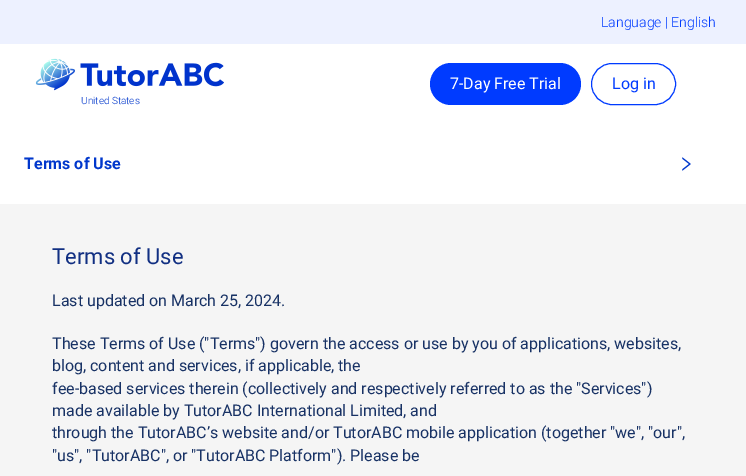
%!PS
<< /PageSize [746 476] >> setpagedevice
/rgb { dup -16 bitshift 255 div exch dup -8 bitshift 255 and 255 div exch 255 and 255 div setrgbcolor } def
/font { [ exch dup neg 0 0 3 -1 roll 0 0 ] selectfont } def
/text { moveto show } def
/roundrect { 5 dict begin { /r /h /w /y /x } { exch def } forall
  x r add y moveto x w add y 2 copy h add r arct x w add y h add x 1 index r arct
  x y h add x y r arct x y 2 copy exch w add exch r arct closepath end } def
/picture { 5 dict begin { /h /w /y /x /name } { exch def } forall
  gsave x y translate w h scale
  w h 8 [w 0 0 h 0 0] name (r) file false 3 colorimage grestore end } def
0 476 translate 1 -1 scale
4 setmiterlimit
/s1 { /Roboto-Light 14 font 16#003BFF rgb } def
/s2 { /Roboto-Regular 16 font 16#FFFFFF rgb } def
/s3 { /Roboto-Regular 16 font 16#003BFF rgb } def
/s4 { /Roboto-Light 10 font 16#0037CC rgb } def
/s5 { /Roboto-Bold 16 font 16#0037CC rgb } def
/s6 { /Roboto-Regular 22 font 16#112F82 rgb } def
/s7 { /Roboto-Regular 16 font 16#183265 rgb } def
16#FFFFFF rgb
0 0 746 476 rectfill
16#EDF1FF rgb
0 0 746 44 rectfill
s1
(Language | English) 601 27 text
430 63 151 42 21 roundrect fill
s2
(7-Day Free Trial) 450 89 text
16#003BFF rgb
591.5 63.5 84 41 20.5 roundrect stroke
(Log in) 612 89 text
(pic1.raw) 35 58 189 33 picture
s4
(United States) 81 104 text
s5
(Terms of Use) 24 169 text
(pic2.raw) 682 157 9 14 picture
16#F5F5F5 rgb
0 204 746 272 rectfill
s6
(Terms of Use) 52 264 text
s7
(Last updated on March 25, 2024.) 52 306 text
(These Terms of Use \("Terms"\) govern the access or use by you of applications, websites,) 52 349 text
(blog, content and services, if applicable, the) 52 371 text
(fee-based services therein \(collectively and respectively referred to as the "Services"\)) 52 394 text
(made available by TutorABC International Limited, and) 52 416 text
(through the TutorABC’s website and/or TutorABC mobile application \(together "we", "our",) 52 438 text
("us", "TutorABC", or "TutorABC Platform"\). Please be) 52 461 text
showpage
